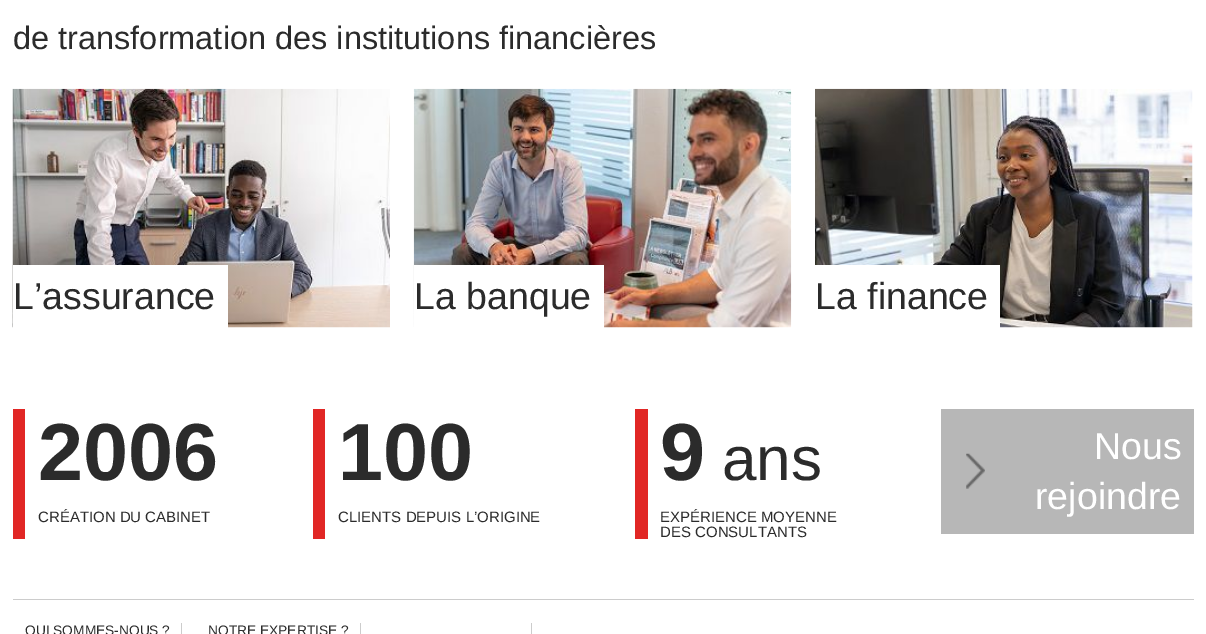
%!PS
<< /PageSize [1206 634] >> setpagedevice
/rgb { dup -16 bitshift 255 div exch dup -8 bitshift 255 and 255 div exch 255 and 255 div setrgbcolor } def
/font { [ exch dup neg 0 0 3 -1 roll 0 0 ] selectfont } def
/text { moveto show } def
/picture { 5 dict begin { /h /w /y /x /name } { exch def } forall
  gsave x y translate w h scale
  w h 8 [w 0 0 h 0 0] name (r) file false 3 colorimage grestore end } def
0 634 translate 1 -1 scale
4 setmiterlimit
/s1 { /LiberationSans-Regular 32.5 font 16#2B2B2B rgb } def
/s2 { /LiberationSans-Regular 37.5 font 16#2B2B2B rgb } def
/s3 { /LiberationSans-Bold 81 font 16#2B2B2B rgb } def
/s4 { /LiberationSans-Regular 15 font 16#2B2B2B rgb } def
/s5 { /LiberationSans-Regular 62 font 16#2B2B2B rgb } def
/s6 { /LiberationSans-Regular 37.5 font 16#FFFFFF rgb } def
/s7 { /LiberationSans-Regular 13.75 font 16#2B2B2B rgb } def
16#FFFFFF rgb
0 0 1206 634 rectfill
s1
(de transformation des institutions financières) 13 49 text
(pic1.raw) 12 88 378 240 picture
16#FFFFFF rgb
13 265 215 63 rectfill
s2
(L’assurance) 13 309 text
(pic2.raw) 413 88 379 240 picture
16#FFFFFF rgb
414 265 190 63 rectfill
s2
(La banque) 414 309 text
(pic3.raw) 815 88 378 240 picture
16#FFFFFF rgb
815 265 185 63 rectfill
s2
(La finance) 815 309 text
16#E12725 rgb
13 409 12 130 rectfill
s3
(2006) 38 480 text
s4
(CRÉATION DU CABINET) 38 522 text
16#E12725 rgb
313 409 12 130 rectfill
s3
(100) 338 480 text
s4
(CLIENTS DEPUIS L’ORIGINE) 338 522 text
16#E12725 rgb
635 409 13 130 rectfill
s3
(9) 660 480 text
s5
(ans) 722 480 text
s4
(EXPÉRIENCE MOYENNE) 660 522 text
(DES CONSULTANTS) 660 537 text
16#B7B7B7 rgb
941 409 253 125 rectfill
(pic4.raw) 966 453 19 36 picture
s6
(Nous) 1094 459 text
(rejoindre) 1035 509 text
16#CCCCCC rgb
13 599 1181 1 rectfill
181 623 1 11 rectfill
s7
(QUI SOMMES-NOUS ?) 25 635 text
16#CCCCCC rgb
360 623 1 11 rectfill
s7
(NOTRE EXPERTISE ?) 208 635 text
16#CCCCCC rgb
531 623 1 11 rectfill
showpage
